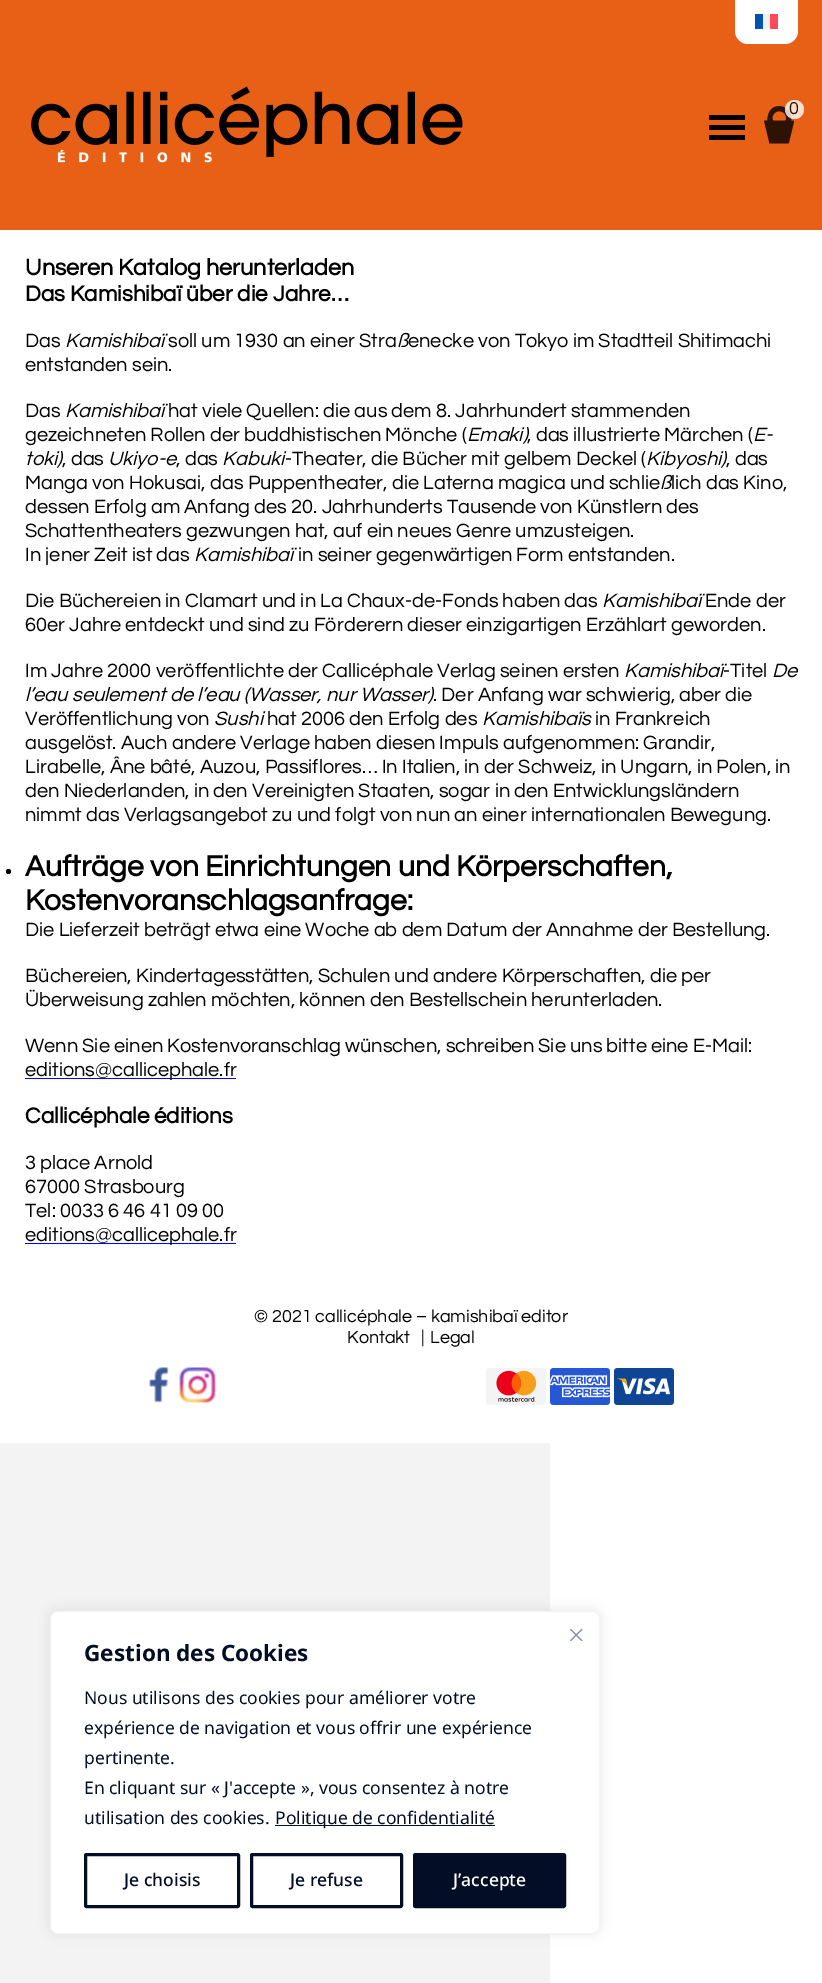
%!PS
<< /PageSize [822 1983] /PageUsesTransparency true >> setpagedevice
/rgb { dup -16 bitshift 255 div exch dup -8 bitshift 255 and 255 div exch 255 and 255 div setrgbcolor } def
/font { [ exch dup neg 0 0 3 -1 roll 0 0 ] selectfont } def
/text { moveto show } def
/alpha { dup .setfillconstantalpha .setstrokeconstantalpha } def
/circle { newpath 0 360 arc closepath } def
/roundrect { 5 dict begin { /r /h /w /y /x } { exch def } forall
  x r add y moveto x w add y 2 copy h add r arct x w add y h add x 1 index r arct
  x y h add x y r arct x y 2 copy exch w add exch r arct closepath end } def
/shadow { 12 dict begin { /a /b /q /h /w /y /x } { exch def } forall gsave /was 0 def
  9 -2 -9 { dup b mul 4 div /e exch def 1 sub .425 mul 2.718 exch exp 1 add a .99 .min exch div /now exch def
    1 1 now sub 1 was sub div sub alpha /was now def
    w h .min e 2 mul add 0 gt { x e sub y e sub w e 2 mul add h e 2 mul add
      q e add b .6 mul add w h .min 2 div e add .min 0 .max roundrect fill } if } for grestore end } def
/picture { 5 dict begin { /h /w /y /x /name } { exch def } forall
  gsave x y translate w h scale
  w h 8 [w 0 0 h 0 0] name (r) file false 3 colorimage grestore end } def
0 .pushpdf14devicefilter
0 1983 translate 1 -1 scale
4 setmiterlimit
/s1 { /Questrial-Regular 18 font 16#2E1304 rgb } def
/s2 { /Questrial-Bold 23.4 font 16#000000 rgb } def
/s3 { /Questrial-Bold 22.5 font 16#000000 rgb } def
/s4 { /Questrial-Regular 20 font 16#000000 rgb } def
/s5 { /Questrial-Italic 20 font 16#000000 rgb } def
/s6 { /Questrial-Bold 30 font 16#000000 rgb } def
/s7 { /Questrial-Regular 18 font 16#000000 rgb } def
/s8 { /NotoSans-Bold 22.5 font 16#040D26 rgb } def
/s9 { /NotoSans-Regular 17.5 font 16#040D26 rgb } def
/s10 { /NotoSans-Medium 17.5 font 16#040D26 rgb } def
/s11 { /NotoSans-Medium 17.5 font 16#FFFFFF rgb } def
16#FFFFFF rgb
0 0 822 1983 rectfill
16#E86016 rgb
0 0 822 230 rectfill
16#FFFFFF rgb
735 0 moveto 798 0 lineto 798 31 lineto 798 38 792 44 785 44 curveto 748 44 lineto 741 44 735 38 735 31 curveto closepath fill
16#0052B4 rgb
755 14 8 15 rectfill
16#F0F0F0 rgb
763 14 7 15 rectfill
16#FF4B55 rgb
770 14 8 15 rectfill
(pic1.raw) 31 86 432 77 picture
(pic2.raw) 764 106 30 38 picture
0.8 alpha
16#FFFFFF rgb
794.5 109.5 9.5 circle fill
1 alpha
s1
(0) 789 114 text
16#000000 rgb
709 135 36 5 rectfill
709 125 36 5 rectfill
709 115 36 5 rectfill
s2
(Unseren Katalog herunterladen) 25 275 text
s3
(Das Kamishibaï über die Jahre…) 25 301 text
s4
(Das) 25 347 text
s5
(Kamishibaï) 65 347 text
s4
(soll um 1930 an einer Stra) 168 347 text
s5
(ß) 397 347 text
s4
(enecke von Tokyo im Stadtteil Shitimachi) 408 347 text
(entstanden sein.) 25 371 text
(Das) 25 417 text
s5
(Kamishibaï) 65 417 text
s4
(hat viele Quellen: die aus dem 8. Jahrhundert stammenden) 168 417 text
(gezeichneten Rollen der buddhistischen Mönche \() 25 441 text
s5
(Emaki\)) 467 441 text
s4
(, das illustrierte Märchen \() 527 441 text
s5
(E-) 753 441 text
(toki\)) 25 465 text
s4
(, das) 62 465 text
s5
(Ukiyo-e) 108 465 text
s4
(, das) 176 465 text
s5
(Kabuki) 222 465 text
s4
(-Theater, die Bücher mit gelbem Deckel \() 285 465 text
s5
(Kibyoshi\)) 646 465 text
s4
(, das) 726 465 text
(Manga von Hokusai, das Puppentheater, die Laterna magica und schlie) 25 489 text
s5
(ß) 660 489 text
s4
(lich das Kino,) 671 489 text
(dessen Erfolg am Anfang des 20. Jahrhunderts Tausende von Künstlern des) 25 513 text
(Schattentheaters gezwungen hat, auf ein neues Genre umzusteigen.) 25 537 text
(In jener Zeit ist das) 25 561 text
s5
(Kamishibaï) 194 561 text
s4
(in seiner gegenwärtigen Form entstanden.) 298 561 text
(Die Büchereien in Clamart und in La Chaux-de-Fonds haben das) 25 607 text
s5
(Kamishibaï) 602 607 text
s4
(Ende der) 705 607 text
(60er Jahre entdeckt und sind zu Förderern dieser einzigartigen Erzählart geworden.) 25 631 text
(Im Jahre 2000 veröffentlichte der Callicéphale Verlag seinen ersten) 25 677 text
s5
(Kamishibaï) 624 677 text
s4
(-Titel) 723 677 text
s5
(De) 772 677 text
(l’eau seulement de l’eau \(Wasser, nur Wasser\)) 25 701 text
s4
(. Der Anfang war schwierig, aber die) 433 701 text
(Veröffentlichung von) 25 725 text
s5
(Sushi) 214 725 text
s4
(hat 2006 den Erfolg des) 267 725 text
s5
(Kamishibaïs) 482 725 text
s4
(in Frankreich) 595 725 text
(ausgelöst. Auch andere Verlage haben diesen Impuls aufgenommen: Grandir,) 25 749 text
(Lirabelle, Âne bâté, Auzou, Passiflores… In Italien, in der Schweiz, in Ungarn, in Polen, in) 25 773 text
(den Niederlanden, in den Vereinigten Staaten, sogar in den Entwicklungsländern) 25 797 text
(nimmt das Verlagsangebot zu und folgt von nun an einer internationalen Bewegung.) 25 821 text
8.5 871.5 2.5 circle fill
s6
(Aufträge von Einrichtungen und Körperschaften,) 25 876 text
(Kostenvoranschlagsanfrage:) 25 910 text
s4
(Die Lieferzeit beträgt etwa eine Woche ab dem Datum der Annahme der Bestellung.) 25 936 text
(Büchereien, Kindertagesstätten, Schulen und andere Körperschaften, die per) 25 982 text
(Überweisung zahlen möchten, können den Bestellschein herunterladen.) 25 1006 text
(Wenn Sie einen Kostenvoranschlag wünschen, schreiben Sie uns bitte eine E-Mail:) 25 1052 text
16#0000FF rgb
25 1078 211 1 rectfill
s4
(editions@callicephale.fr) 25 1076 text
s3
(Callicéphale éditions) 25 1123 text
s4
(3 place Arnold) 25 1169 text
(67000 Strasbourg) 25 1193 text
(Tel: 0033 6 46 41 09 00) 25 1217 text
16#0000FF rgb
25 1243 211 1 rectfill
s4
(editions@callicephale.fr) 25 1241 text
s7
(© 2021 callicéphale – kamishibaï editor) 254 1322 text
(Kontakt) 347 1343 text
(|) 421 1343 text
(Legal) 430 1343 text
(pic3.raw) 149 1367 20 36 picture
(pic4.raw) 179 1367 37 36 picture
(pic5.raw) 486 1368 60 37 picture
(pic6.raw) 550 1368 60 37 picture
(pic7.raw) 614 1368 60 37 picture
16#F3F3F3 rgb
0 1443 550 540 rectfill
16#ACABAB rgb
50 1610 550 323 8 6 0.3 shadow
16#FFFFFF rgb
50.5 1611.5 549 322 7.5 roundrect gsave fill grestore
16#F4F4F4 rgb
stroke
(pic8.raw) 570 1629 13 12 picture
s8
(Gestion des Cookies) 84 1661 text
s9
(Nous utilisons des cookies pour améliorer votre) 84 1704 text
(expérience de navigation et vous offrir une expérience) 84 1734 text
(pertinente.) 84 1764 text
(En cliquant sur « J'accepte », vous consentez à notre) 84 1794 text
(utilisation des cookies.) 84 1824 text
275 1825 220 1 rectfill
(Politique de confidentialité) 275 1824 text
3 setlinewidth
85.5 1854.5 153 52 1 roundrect stroke
s10
(Je choisis) 124 1886 text
251.5 1854.5 150 52 1 roundrect stroke
(Je refuse) 290 1886 text
414.5 1854.5 150 52 1 roundrect gsave fill grestore
stroke
s11
(J’accepte) 453 1886 text
.poppdf14devicefilter showpage
